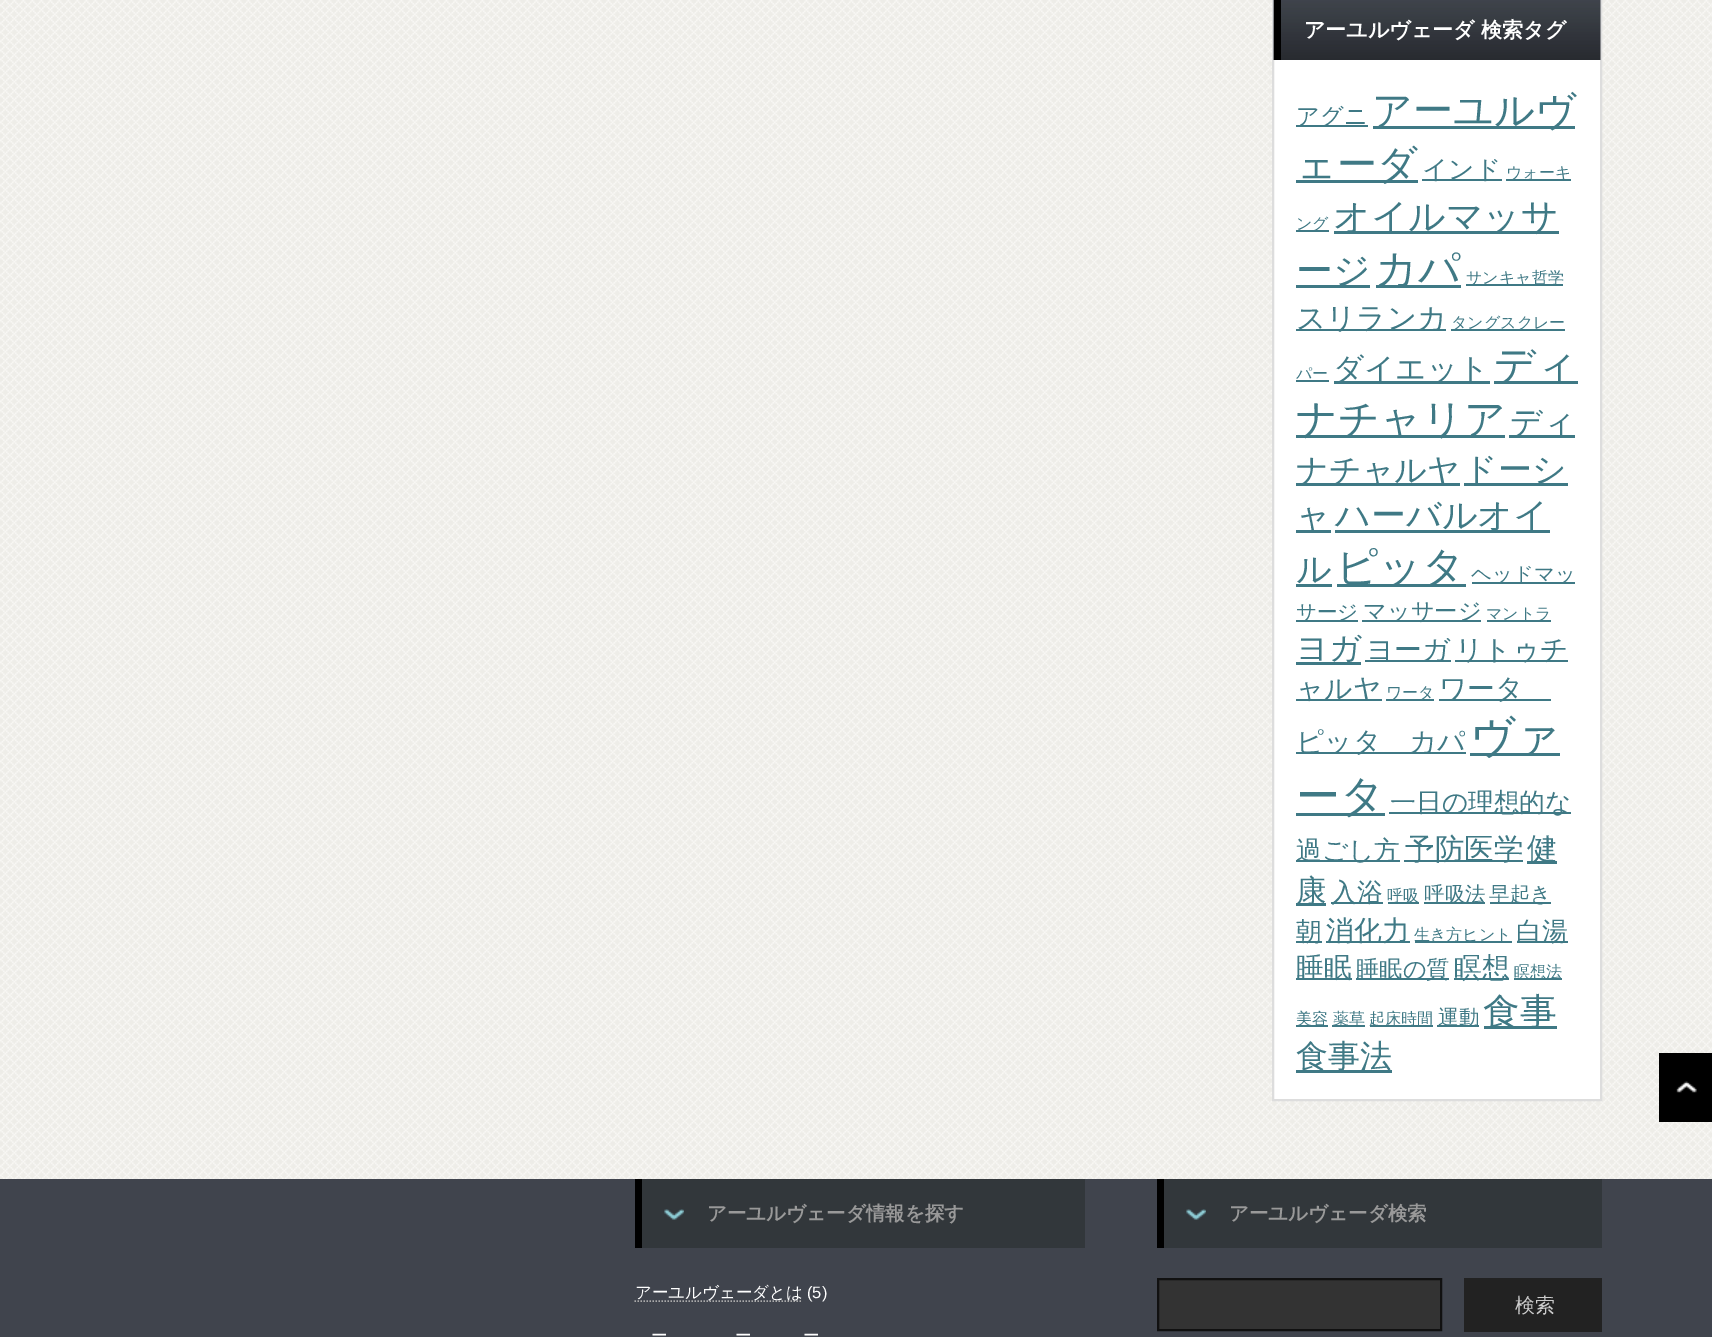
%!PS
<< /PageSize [1712 1337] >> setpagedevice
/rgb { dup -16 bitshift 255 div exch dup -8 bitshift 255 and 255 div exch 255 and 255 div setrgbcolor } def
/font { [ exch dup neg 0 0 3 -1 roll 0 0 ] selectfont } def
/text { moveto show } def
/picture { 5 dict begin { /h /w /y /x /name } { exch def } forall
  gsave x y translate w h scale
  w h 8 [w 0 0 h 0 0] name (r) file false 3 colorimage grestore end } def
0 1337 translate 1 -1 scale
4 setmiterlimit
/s1 { /WenQuanYiZenHei-Bold 21 font 16#FFFFFF rgb } def
/s2 { /WenQuanYiZenHei-Medium 23.25 font 16#3F7985 rgb } def
/s3 { /WenQuanYiZenHei-Medium 40 font 16#3F7985 rgb } def
/s4 { /WenQuanYiZenHei-Medium 25.75 font 16#3F7985 rgb } def
/s5 { /WenQuanYiZenHei-Medium 16 font 16#3F7985 rgb } def
/s6 { /WenQuanYiZenHei-Medium 36.75 font 16#3F7985 rgb } def
/s7 { /WenQuanYiZenHei-Medium 42 font 16#3F7985 rgb } def
/s8 { /WenQuanYiZenHei-Medium 29.5 font 16#3F7985 rgb } def
/s9 { /WenQuanYiZenHei-Medium 30.5 font 16#3F7985 rgb } def
/s10 { /WenQuanYiZenHei-Medium 41 font 16#3F7985 rgb } def
/s11 { /WenQuanYiZenHei-Medium 32 font 16#3F7985 rgb } def
/s12 { /WenQuanYiZenHei-Medium 34 font 16#3F7985 rgb } def
/s13 { /WenQuanYiZenHei-Medium 35 font 16#3F7985 rgb } def
/s14 { /WenQuanYiZenHei-Medium 20.5 font 16#3F7985 rgb } def
/s15 { /WenQuanYiZenHei-Medium 27.75 font 16#3F7985 rgb } def
/s16 { /WenQuanYiZenHei-Medium 44 font 16#3F7985 rgb } def
/s17 { /WenQuanYiZenHei-Bold 19.5 font 16#999999 rgb } def
/s18 { /WenQuanYiZenHei-Medium 16.5 font 16#FFFFFF rgb } def
/s19 { /LiberationSans-Regular 16.5 font 16#FFFFFF rgb } def
/s20 { /WenQuanYiZenHei-Medium 20 font 16#CCCCCC rgb } def
16#FFFFFF rgb
0 0 1712 1337 rectfill
(pic1.raw) 0 0 1712 1179 picture
1274 60 326 1039 rectfill
16#DDDDDD rgb
2 setlinewidth
1273 -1 328 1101 rectstroke
(pic2.raw) 1273 0 328 60 picture
16#000000 rgb
1274 0 7 60 rectfill
s1
(アーユルヴェーダ 検索タグ) 1304 37 text
16#3F7985 rgb
1296 125 72 2 rectfill
s2
(アグニ) 1296 124 text
1373 126 202 3 rectfill
s3
(アーユルヴ) 1372 124 text
1296 180 122 3 rectfill
(ェーダ) 1296 178 text
1422 179 80 2 rectfill
s4
(インド) 1422 178 text
1506 179 65 2 rectfill
s5
(ウォーキ) 1506 178 text
1296 230 33 2 rectfill
(ング) 1296 229 text
1334 231 225 3 rectfill
s6
(オイルマッサ) 1333 229 text
1296 285 74 3 rectfill
(ージ) 1296 283 text
1376 285 85 3 rectfill
s7
(カパ) 1375 283 text
1466 284 97 2 rectfill
s5
(サンキャ哲学) 1466 283 text
1296 329 150 2 rectfill
s8
(スリランカ) 1296 328 text
1451 329 114 2 rectfill
s5
(タングスクレー) 1451 328 text
(パー) 1296 379 text
1296 380 33 2 rectfill
1334 381 156 3 rectfill
s9
(ダイエット) 1333 379 text
1494 381 84 3 rectfill
s10
(ディ) 1494 379 text
1296 435 209 3 rectfill
(ナチャリア) 1296 433 text
1509 435 66 3 rectfill
s11
(ディ) 1510 433 text
1296 483 164 3 rectfill
(ナチャルヤ) 1296 481 text
1464 483 104 3 rectfill
s12
(ドーシ) 1463 481 text
1296 530 35 3 rectfill
(ャ) 1296 527 text
1335 530 215 3 rectfill
s13
(ハーバルオイ) 1335 527 text
(ル) 1296 581 text
1296 584 36 3 rectfill
1337 584 129 3 rectfill
s7
(ピッタ) 1336 581 text
1472 582 103 2 rectfill
s14
(ヘッドマッ) 1471 581 text
1296 620 62 2 rectfill
(サージ) 1296 619 text
1362 620 119 2 rectfill
s2
(マッサージ) 1363 619 text
1487 620 64 2 rectfill
s5
(マントラ) 1486 619 text
s11
(ヨガ) 1296 659 text
1296 662 65 3 rectfill
1365 660 86 2 rectfill
s15
(ヨーガ) 1366 659 text
1455 660 113 2 rectfill
(リトゥチ) 1455 659 text
1296 699 86 2 rectfill
(ャルヤ) 1296 698 text
1386 699 48 2 rectfill
s5
(ワータ) 1386 698 text
1439 699 112 2 rectfill
s15
(ワータ) 1439 698 text
1296 752 170 2 rectfill
(ピッタ　カパ) 1296 751 text
1470 753 90 3 rectfill
s16
(ヴァ) 1470 751 text
1296 813 89 3 rectfill
(ータ) 1296 811 text
1389 812 182 2 rectfill
s4
(一日の理想的な) 1390 811 text
1296 860 104 2 rectfill
(過ごし方) 1296 859 text
1404 860 119 2 rectfill
s8
(予防医学) 1405 859 text
1527 861 30 3 rectfill
s9
(健) 1527 859 text
1296 903 30 3 rectfill
(康) 1296 901 text
1331 902 52 2 rectfill
s4
(入浴) 1331 901 text
1388 902 31 2 rectfill
s5
(呼吸) 1387 901 text
1424 902 61 2 rectfill
s14
(呼吸法) 1424 901 text
1490 902 61 2 rectfill
(早起き) 1489 901 text
1296 941 26 2 rectfill
s4
(朝) 1296 940 text
1326 941 84 2 rectfill
s15
(消化力) 1326 940 text
1415 941 97 2 rectfill
s5
(生き方ヒント) 1414 940 text
1517 941 51 2 rectfill
s4
(白湯) 1516 940 text
1296 978 56 2 rectfill
s15
(睡眠) 1296 977 text
1356 978 93 2 rectfill
s2
(睡眠の質) 1356 977 text
1454 978 55 2 rectfill
s15
(瞑想) 1454 977 text
1514 978 48 2 rectfill
s5
(瞑想法) 1514 977 text
1296 1025 32 2 rectfill
(美容) 1296 1024 text
1332 1025 33 2 rectfill
(薬草) 1333 1024 text
1370 1025 63 2 rectfill
(起床時間) 1369 1024 text
1437 1025 42 2 rectfill
s14
(運動) 1438 1024 text
1484 1026 73 3 rectfill
s6
(食事) 1483 1024 text
1296 1070 96 3 rectfill
s11
(食事法) 1296 1067 text
(pic3.raw) 1659 1053 53 69 picture
16#40444D rgb
0 1179 1712 158 rectfill
16#32373B rgb
642 1179 443 69 rectfill
(pic4.raw) 664 1209 20 11 picture
16#000000 rgb
635 1179 7 69 rectfill
s17
(アーユルヴェーダ情報を探す) 707 1220 text
16#AAAAAA rgb
1.5 setlinewidth
[1.5 1.5] 0 setdash
634.5 1301 moveto 802.5 1301 lineto stroke
s18
(アーユルヴェーダとは) 635 1298 text
s19
(\(5\)) 807 1298 text
s18
(ー) 651 1341 text
(ー) 735 1341 text
(ー) 803 1341 text
16#32373B rgb
1164 1179 438 69 rectfill
(pic4.raw) 1186 1209 20 11 picture
16#000000 rgb
1157 1179 7 69 rectfill
s17
(アーユルヴェーダ検索) 1229 1220 text
16#333333 rgb
1158 1279 moveto 1441 1279 lineto 1441 1330 lineto 1158 1330 lineto closepath gsave fill grestore
16#111111 rgb
2 setlinewidth
[] 0 setdash
stroke
16#222222 rgb
1464 1278 138 54 rectfill
s20
(検索) 1515 1312 text
showpage
